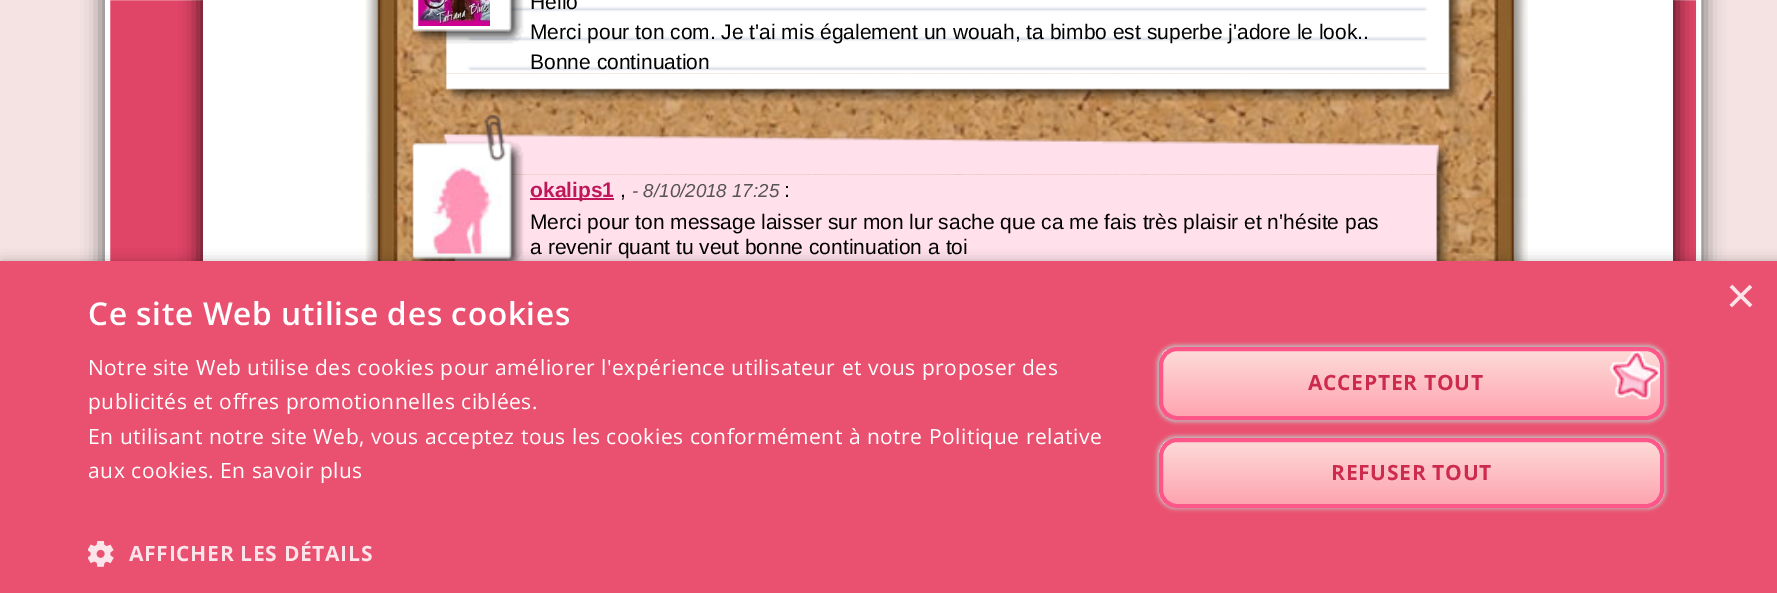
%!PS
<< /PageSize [1777 593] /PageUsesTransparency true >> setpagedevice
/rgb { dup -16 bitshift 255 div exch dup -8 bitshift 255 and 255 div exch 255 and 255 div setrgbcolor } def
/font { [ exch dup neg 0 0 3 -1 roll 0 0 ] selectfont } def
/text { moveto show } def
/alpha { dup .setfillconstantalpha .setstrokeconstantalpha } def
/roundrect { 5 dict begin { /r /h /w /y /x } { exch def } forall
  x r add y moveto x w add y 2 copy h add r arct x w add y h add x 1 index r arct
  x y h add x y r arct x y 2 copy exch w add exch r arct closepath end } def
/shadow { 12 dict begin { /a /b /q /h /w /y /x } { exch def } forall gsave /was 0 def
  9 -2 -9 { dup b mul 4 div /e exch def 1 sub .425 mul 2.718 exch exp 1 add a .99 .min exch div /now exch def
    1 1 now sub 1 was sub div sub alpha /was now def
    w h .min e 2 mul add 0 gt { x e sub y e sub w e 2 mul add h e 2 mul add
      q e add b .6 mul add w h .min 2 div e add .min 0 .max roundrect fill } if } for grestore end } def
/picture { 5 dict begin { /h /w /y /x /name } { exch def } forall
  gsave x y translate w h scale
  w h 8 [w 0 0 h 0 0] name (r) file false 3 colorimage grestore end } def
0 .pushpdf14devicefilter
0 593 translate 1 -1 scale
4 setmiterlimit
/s1 { /LiberationSans-Regular 21 font 16#000000 rgb } def
/s2 { /LiberationSans-Bold 21 font 16#BF1759 rgb } def
/s3 { /LiberationSans-Italic 18.75 font 16#555555 rgb } def
/s4 { /LiberationSans-Regular 51 font 16#FCE5EA rgb } def
16#F5E3E3 rgb
0 0 1777 593 rectfill
16#808080 rgb
100 -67 1606 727 40 9 1 shadow
gsave 110 0 moveto 1696 0 lineto 1696 261 lineto 110 261 lineto closepath clip newpath
<< /ShadingType 2 /ColorSpace /DeviceRGB /Coords [110 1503 110 -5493] /Extend [true true] /Function << /FunctionType 3 /Domain [0 1] /Functions [<< /FunctionType 2 /Domain [0 1] /C0 [0.878 0.267 0.4] /C1 [0.878 0.267 0.4] /N 1 >> << /FunctionType 2 /Domain [0 1] /C0 [0.878 0.267 0.4] /C1 [1 0.549 0.647] /N 1 >>] /Bounds [0.61] /Encode [0 1 0 1] >> >> shfill grestore
16#FFFFFF rgb
5 setlinewidth
107.5 -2.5 1591 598 rectstroke
16#000000 rgb
198 -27 1480 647 0 9 0.6 shadow
16#FFFFFF rgb
203 0 1470 261 rectfill
(pic1.raw) 365 0 1163 261 picture
(pic4.raw) 444 0 1018 74 picture
(pic2.raw) 411 0 113 44 picture
(pic3.raw) 418 0 72 26 picture
s1
(Hello) 530 9 text
(Merci pour ton com. Je t'ai mis également un wouah, ta bimbo est superbe j'adore le look..) 530 39 text
(Bonne continuation) 530 69 text
(pic5.raw) 444 73 1018 29 picture
(pic8.raw) 444 133 1007 42 picture
(pic9.raw) 452 174 997 87 picture
(pic6.raw) 411 113 113 148 picture
(pic7.raw) 432 166 70 88 picture
16#BF1759 rgb
530 198 84 2 rectfill
s2
(okalips1) 530 197 text
s1
(,) 620 197 text
s3
(- 8/10/2018 17:25) 632 197 text
s1
(:) 784 197 text
(Merci pour ton message laisser sur mon lur sache que ca me fais très plaisir et n'hésite pas) 530 229 text
(a revenir quant tu veut bonne continuation a toi) 530 254 text
2 264 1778 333 0 7 0.35 shadow
16#EA5170 rgb
0 261 1777 332 rectfill
s4
(×) 1726 313 text
/OpenSans-SemiBold 31.5 font
16#FFFFFF rgb
88 325 moveto 0.7 0 (Ce site Web utilise des cookies) ashow
/OpenSans-Regular 21 font
88 375 moveto 0.53 0 (Notre site Web utilise des cookies pour améliorer l'expérience utilisateur et vous proposer des) ashow
88 409 moveto 0.53 0 (publicités et offres promotionnelles ciblées.) ashow
88 444 moveto 0.53 0 (En utilisant notre site Web, vous acceptez tous les cookies conformément à notre Politique relative) ashow
88 478 moveto 0.53 0 (aux cookies. En savoir plus) ashow
(pic10.raw) 88 541 26 26 picture
/OpenSans-Bold 21 font
16#FCE5EA rgb
129 561 moveto 0.7 0 (AFFICHER LES DÉTAILS) ashow
16#BFBFBF rgb
1157 345 509 77 19 2 1 shadow
(pic11.raw) 1162 350 499 67 picture
16#FC5788 rgb
4 setlinewidth
1161 349 501 69 16 roundrect stroke
16#CD2B4E rgb
1308 390 moveto 0.7 0 (ACCEPTER TOUT) ashow
16#BFBFBF rgb
1157 436 509 73 19 2 1 shadow
gsave
1159 438 505 70 18 roundrect clip newpath
gsave 1159 441 moveto 1664 441 lineto 1664 504 lineto 1159 504 lineto closepath clip newpath
<< /ShadingType 2 /ColorSpace /DeviceRGB /Coords [1411 441 1411 504] /Extend [true true] /Function << /FunctionType 2 /Domain [0 1] /C0 [0.992 0.859 0.847] /C1 [0.996 0.643 0.69] /N 1 >> >> shfill grestore
grestore
16#FC5788 rgb
1161 440 501 66 16 roundrect stroke
16#CD2B4E rgb
1331 480 moveto 0.7 0 (REFUSER TOUT) ashow
.poppdf14devicefilter showpage
